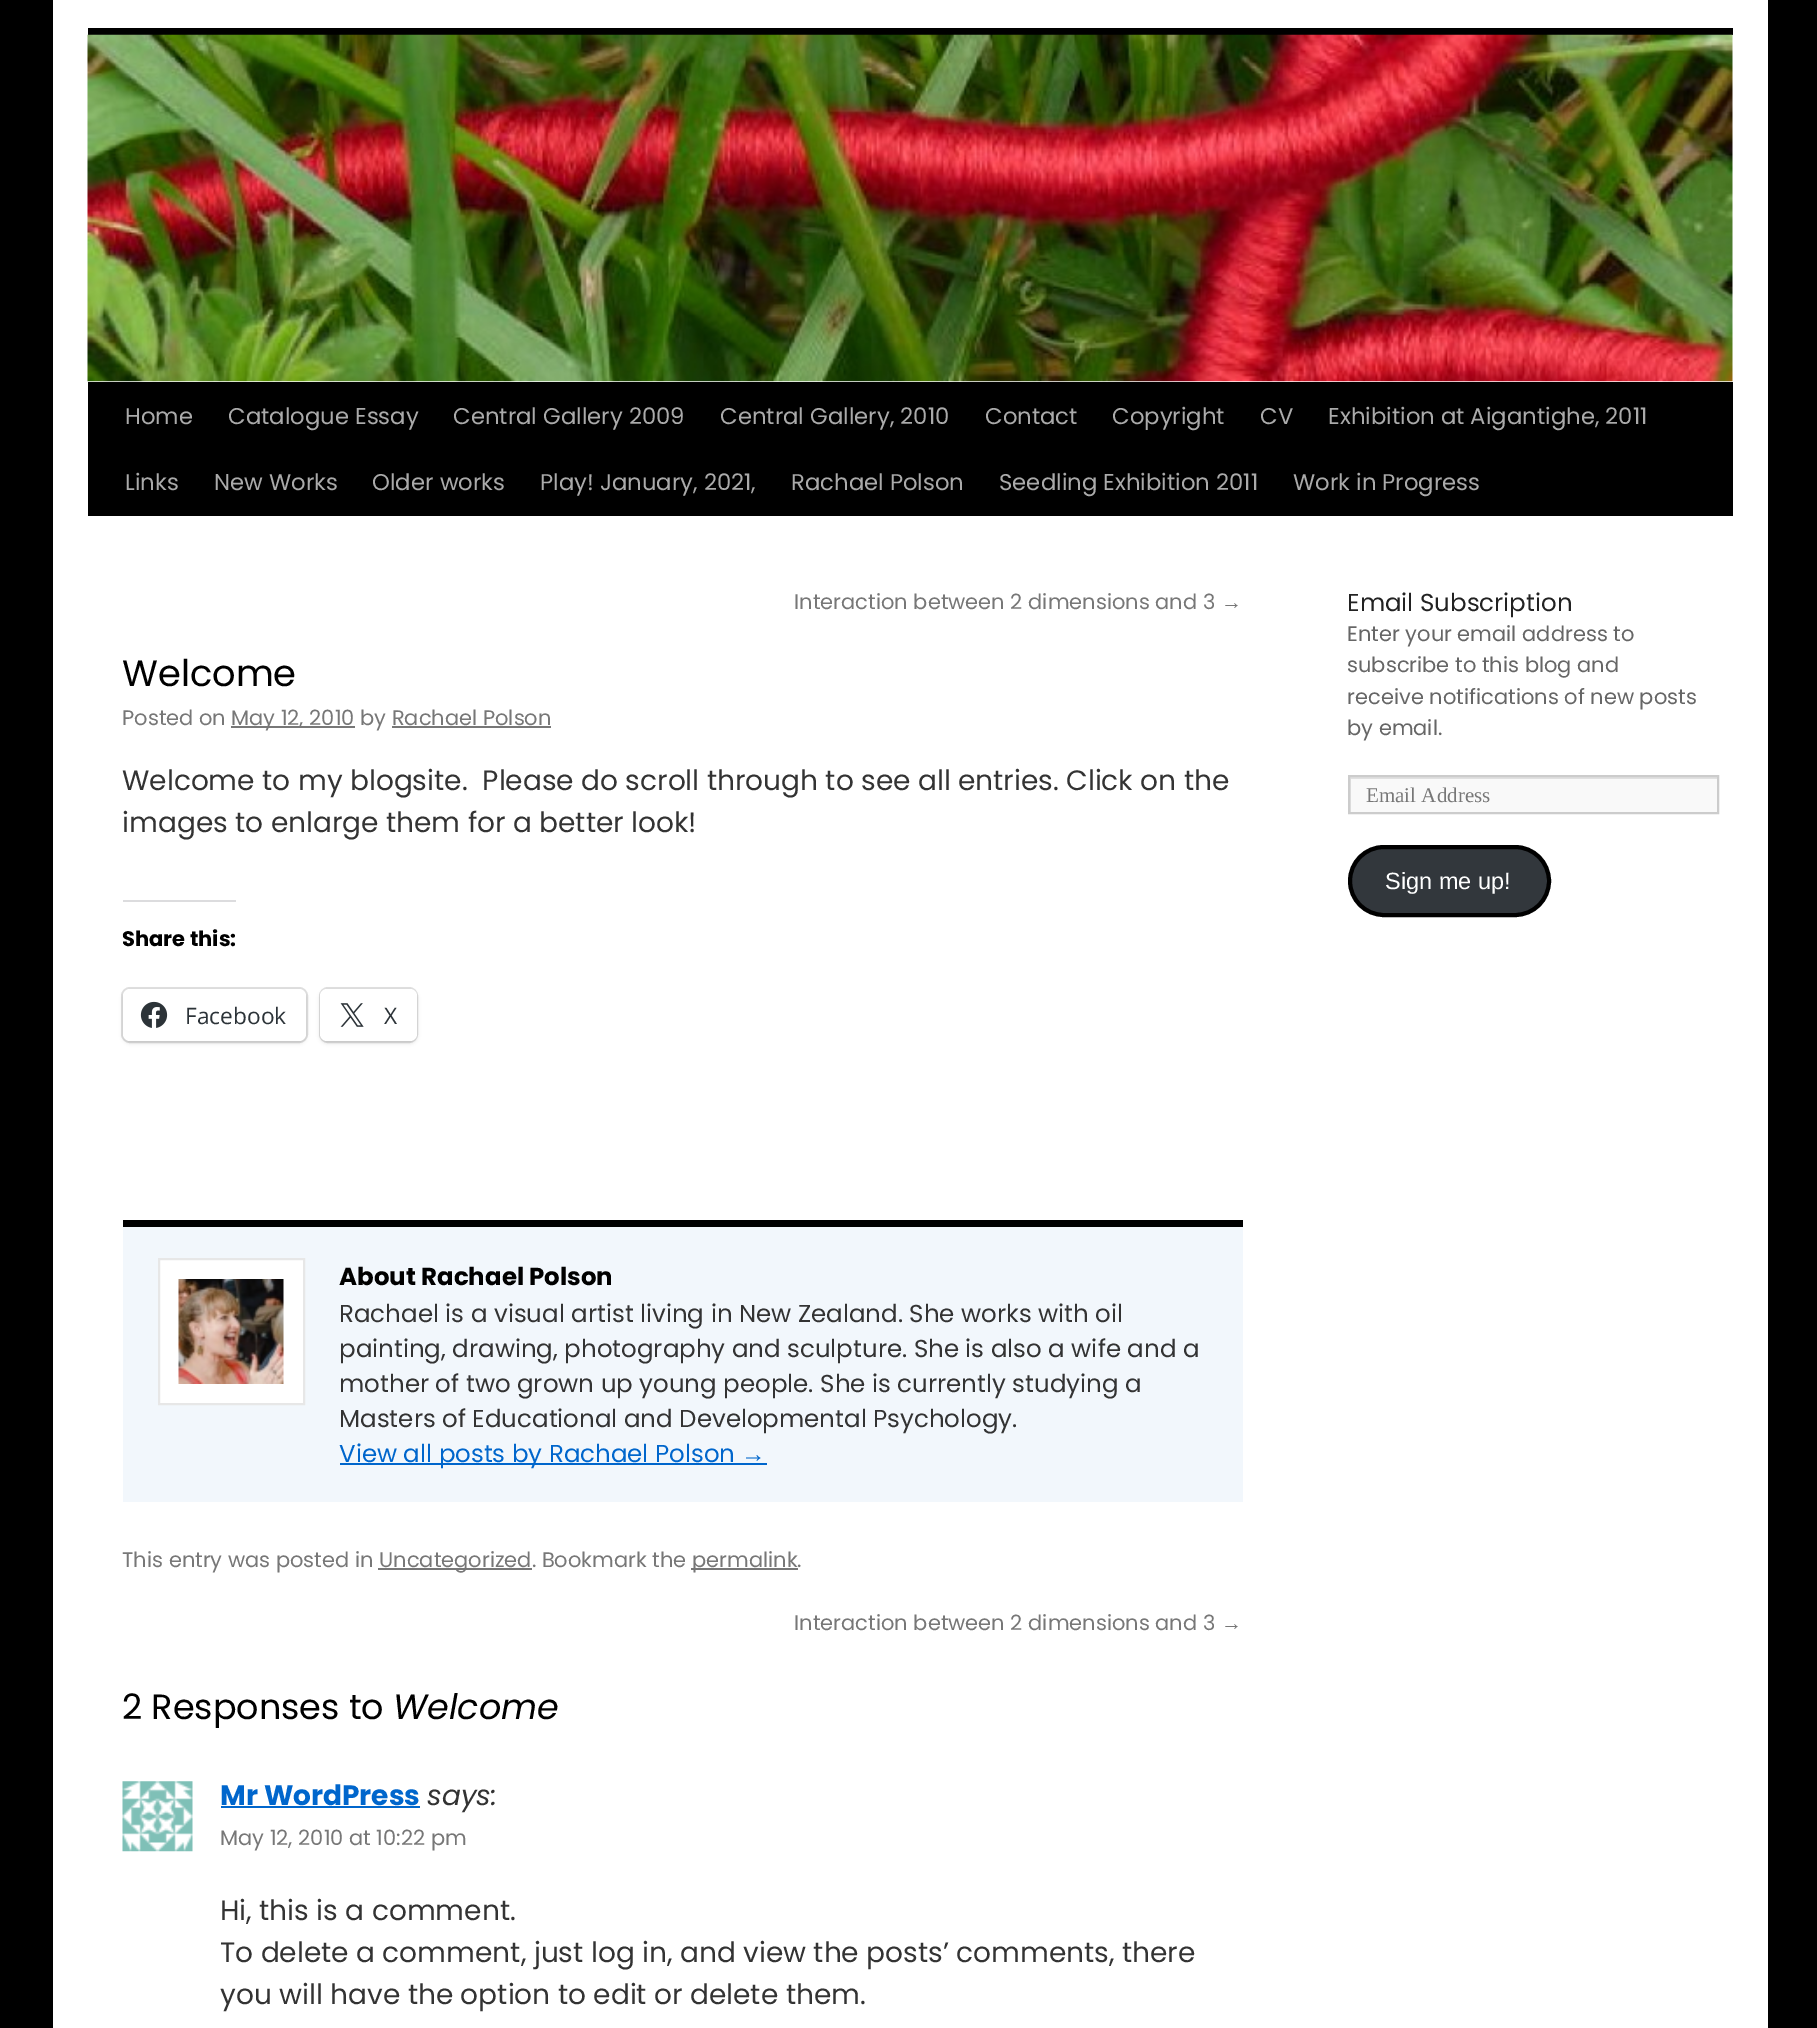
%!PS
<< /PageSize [1817 2028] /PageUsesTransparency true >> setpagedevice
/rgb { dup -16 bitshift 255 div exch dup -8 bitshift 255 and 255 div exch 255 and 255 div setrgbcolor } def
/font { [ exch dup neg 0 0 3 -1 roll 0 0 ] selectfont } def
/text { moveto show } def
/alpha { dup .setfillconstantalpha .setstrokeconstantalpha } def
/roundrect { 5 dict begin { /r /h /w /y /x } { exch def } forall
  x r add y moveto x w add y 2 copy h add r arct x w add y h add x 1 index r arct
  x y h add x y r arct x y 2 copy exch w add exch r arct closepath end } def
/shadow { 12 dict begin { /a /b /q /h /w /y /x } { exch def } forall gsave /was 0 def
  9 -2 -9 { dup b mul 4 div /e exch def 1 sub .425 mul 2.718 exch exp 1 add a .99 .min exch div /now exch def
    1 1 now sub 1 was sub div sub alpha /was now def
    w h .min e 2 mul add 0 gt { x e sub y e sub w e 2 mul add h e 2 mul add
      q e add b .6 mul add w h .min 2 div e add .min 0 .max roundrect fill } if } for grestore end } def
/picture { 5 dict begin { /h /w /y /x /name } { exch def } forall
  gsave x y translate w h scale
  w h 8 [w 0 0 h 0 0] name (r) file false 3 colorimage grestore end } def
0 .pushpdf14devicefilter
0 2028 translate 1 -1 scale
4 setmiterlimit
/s1 { /Poppins-Regular 22.75 font 16#AAAAAA rgb } def
/s2 { /Poppins-Regular 21 font 16#777777 rgb } def
/s3 { /LiberationSans-Regular 21 font 16#777777 rgb } def
/s4 { /Poppins-Regular 36.75 font 16#000000 rgb } def
/s5 { /Poppins-Regular 28 font 16#333333 rgb } def
/s6 { /Poppins-Bold 21 font 16#000000 rgb } def
/s7 { /OpenSans-Regular 22.75 font 16#2C3338 rgb } def
/s8 { /Poppins-Bold 24.5 font 16#000000 rgb } def
/s9 { /Poppins-Regular 24.5 font 16#333333 rgb } def
/s10 { /Poppins-Regular 24.5 font 16#0066CC rgb } def
/s11 { /LiberationSans-Regular 24.5 font 16#0066CC rgb } def
/s12 { /Poppins-Regular 35 font 16#000000 rgb } def
/s13 { /Poppins-Italic 35 font 16#000000 rgb } def
/s14 { /Poppins-Bold 28 font 16#0066CC rgb } def
/s15 { /Poppins-Italic 28 font 16#333333 rgb } def
/s16 { /Poppins-Regular 24.5 font 16#222222 rgb } def
/s17 { /Poppins-Regular 21 font 16#666666 rgb } def
/s18 { /LiberationSerif-Regular 21 font 16#777777 rgb } def
/s19 { /LiberationSans-Regular 23.5 font 16#FFFFFF rgb } def
16#000000 rgb
0 0 1817 2028 rectfill
16#FFFFFF rgb
53 0 1715 2028 rectfill
16#000000 rgb
88 28 1645 7 rectfill
88 382 1645 134 rectfill
(pic1.raw) 87 34 1646 348 picture
s1
(Home) 125 424 text
(Catalogue Essay) 228 424 text
(Central Gallery 2009) 453 424 text
(Central Gallery, 2010) 720 424 text
(Contact) 985 424 text
(Copyright) 1112 424 text
(CV) 1260 424 text
(Exhibition at Aigantighe, 2011) 1328 424 text
(Links) 125 490 text
(New Works) 214 490 text
(Older works) 372 490 text
(Play! January, 2021,) 540 490 text
(Rachael Polson) 791 490 text
(Seedling Exhibition 2011) 999 490 text
(Work in Progress) 1293 490 text
s2
(Interaction between 2 dimensions and 3) 794 609 text
s3
(→) 1221 609 text
s4
(Welcome) 122 686 text
s2
(Posted on) 122 725 text
231 726 124 2 rectfill
(May 12, 2010 by Rachael Polson) 231 725 text
392 726 159 2 rectfill
s5
(Welcome to my blogsite.  Please do scroll through to see all entries. Click on the) 122 790 text
(images to enlarge them for a better look!) 122 832 text
16#DCDCDE rgb
123 900 113 2 rectfill
s6
(Share this:) 122 946 text
16#E0E0E0 rgb
2 setlinewidth
122 988 185 54 8 roundrect stroke
16#000000 rgb
123 991 183 52 7 2 0.12 shadow
16#FFFFFF rgb
123 989 183 52 7 roundrect fill
(pic2.raw) 140 1001 28 27 picture
s7
(Facebook) 185 1024 text
16#E0E0E0 rgb
320 988 97 54 8 roundrect stroke
16#000000 rgb
320 991 97 52 7 2 0.12 shadow
16#FFFFFF rgb
320 989 97 52 7 roundrect fill
(pic3.raw) 340 1003 24 24 picture
s7
(X) 384 1024 text
16#F2F7FC rgb
123 1227 1120 275 rectfill
16#000000 rgb
123 1220 1120 7 rectfill
16#FFFFFF rgb
159 1259 moveto 304 1259 lineto 304 1404 lineto 159 1404 lineto closepath gsave fill grestore
16#E7E7E7 rgb
stroke
(pic4.raw) 178 1279 106 105 picture
s8
(About Rachael Polson) 339 1285 text
s9
(Rachael is a visual artist living in New Zealand. She works with oil) 339 1322 text
(painting, drawing, photography and sculpture. She is also a wife and a) 339 1357 text
(mother of two grown up young people. She is currently studying a) 339 1392 text
(Masters of Educational and Developmental Psychology.) 339 1427 text
16#0066CC rgb
340 1463 427 2 rectfill
(View all posts by Rachael Polson) 339 1462 text
s11
(→) 741 1462 text
s2
(This entry was posted in) 122 1567 text
378 1568 154 2 rectfill
(Uncategorized. Bookmark the) 379 1567 text
691 1568 107 2 rectfill
(permalink.) 692 1567 text
(Interaction between 2 dimensions and 3) 794 1630 text
s3
(→) 1221 1630 text
s12
(2 Responses to) 122 1719 text
s13
(Welcome) 393 1719 text
(pic5.raw) 122 1781 71 71 picture
s14
(Mr WordPress) 220 1805 text
221 1806 199 2 rectfill
s15
(says:) 427 1805 text
s2
(May 12, 2010 at 10:22 pm) 220 1845 text
s5
(Hi, this is a comment.) 220 1920 text
(To delete a comment, just log in, and view the posts’ comments, there) 220 1962 text
(you will have the option to edit or delete them.) 220 2004 text
s16
(Email Subscription) 1347 611 text
s17
(Enter your email address to) 1347 641 text
gsave
1348 586 385 363 rectclip
(subscribe to this blog and) 1347 672 text
grestore
(receive notifications of new posts) 1347 704 text
(by email.) 1347 735 text
16#F9F9F9 rgb
1351 779 366 33 rectfill
gsave
1349 777 368 35 rectclip
16#E0E0E0 rgb
1176 604 moveto 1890 604 lineto 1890 985 lineto 1176 985 lineto closepath 1351 779 moveto 1718 779 lineto 1718 814 lineto 1351 814 lineto closepath eofill
grestore
16#CCCCCC rgb
1349 776 369 37 rectstroke
s18
(Email Address) 1366 802 text
16#32373C rgb
1350 847 199 68 34 roundrect gsave fill grestore
16#000000 rgb
4 setlinewidth
stroke
s19
(Sign me up!) 1385 889 text
.poppdf14devicefilter showpage
